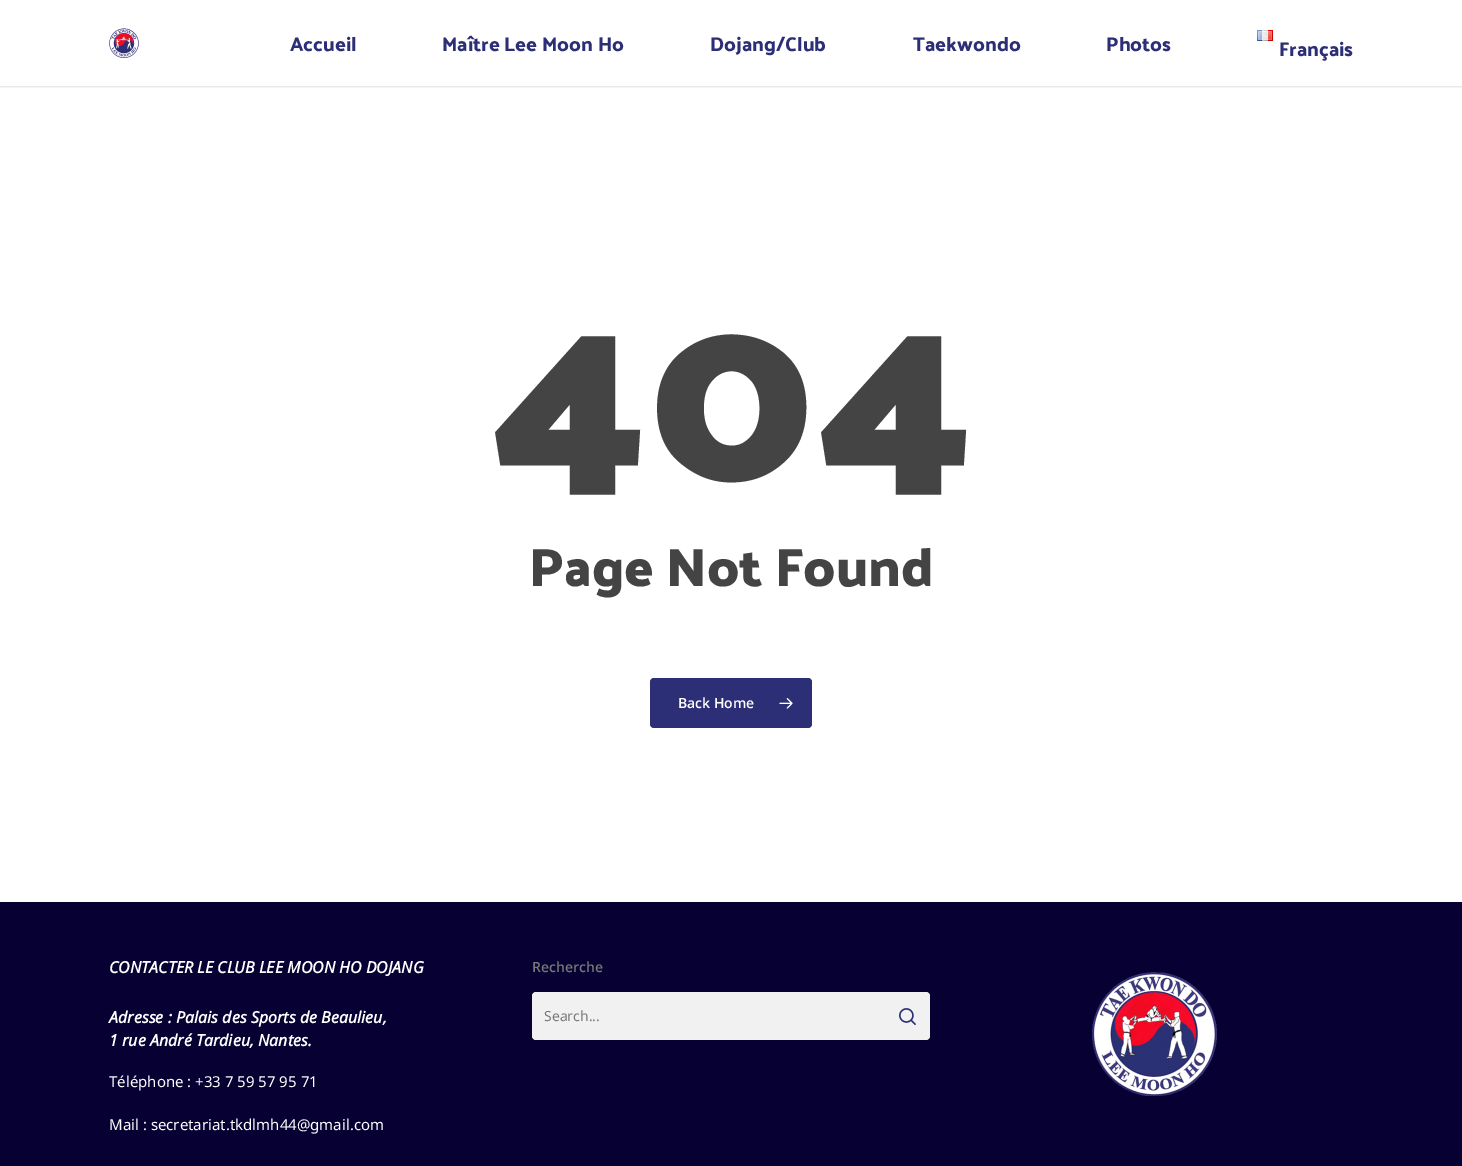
%!PS
<< /PageSize [1462 1166] /PageUsesTransparency true >> setpagedevice
/rgb { dup -16 bitshift 255 div exch dup -8 bitshift 255 and 255 div exch 255 and 255 div setrgbcolor } def
/font { [ exch dup neg 0 0 3 -1 roll 0 0 ] selectfont } def
/text { moveto show } def
/alpha { dup .setfillconstantalpha .setstrokeconstantalpha } def
/roundrect { 5 dict begin { /r /h /w /y /x } { exch def } forall
  x r add y moveto x w add y 2 copy h add r arct x w add y h add x 1 index r arct
  x y h add x y r arct x y 2 copy exch w add exch r arct closepath end } def
/shadow { 12 dict begin { /a /b /q /h /w /y /x } { exch def } forall gsave /was 0 def
  9 -2 -9 { dup b mul 4 div /e exch def 1 sub .425 mul 2.718 exch exp 1 add a .99 .min exch div /now exch def
    1 1 now sub 1 was sub div sub alpha /was now def
    w h .min e 2 mul add 0 gt { x e sub y e sub w e 2 mul add h e 2 mul add
      q e add b .6 mul add w h .min 2 div e add .min 0 .max roundrect fill } if } for grestore end } def
/picture { 5 dict begin { /h /w /y /x /name } { exch def } forall
  gsave x y translate w h scale
  w h 8 [w 0 0 h 0 0] name (r) file false 3 colorimage grestore end } def
0 .pushpdf14devicefilter
0 1166 translate 1 -1 scale
4 setmiterlimit
/s1 { /PalanquinDark-Medium 20 font 16#2D2F76 rgb } def
/s2 { /PalanquinDark-Bold 250 font 16#444444 rgb } def
/s3 { /PalanquinDark-SemiBold 54 font 16#444444 rgb } def
/s4 { /OpenSans-SemiBold 14 font 16#FFFFFF rgb } def
/s5 { /NotoSans-BoldItalic 16 font 16#FFFFFF rgb } def
/s6 { /NotoSans-Regular 15 font 16#FFFFFF rgb } def
/s7 { /OpenSans-SemiBold 14 font 16#777777 rgb } def
/s8 { /NotoSans-Regular 14 font 16#777777 rgb } def
16#FFFFFF rgb
0 0 1462 1166 rectfill
gsave
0 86 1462 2 rectclip
16#000000 rgb
0 0 1462 86 0 1.5 0.22 shadow
grestore
(pic1.raw) 109 28 30 30 picture
s1
(Accueil) 290 51 text
(Maître Lee Moon Ho) 442 51 text
(Dojang/Club) 710 51 text
(Taekwondo) 913 51 text
(Photos) 1106 51 text
(pic2.raw) 1257 30 16 11 picture
(Français) 1279 56 text
s2
(404) 490 479 text
s3
(Page Not Found) 529 586 text
16#2D2F76 rgb
650 678 162 50 4 roundrect fill
s4
(Back Home) 678 708 text
(pic3.raw) 779 698 14 11 picture
16#060033 rgb
0 902 1462 264 rectfill
s5
(CONTACTER LE CLUB LEE MOON HO DOJANG) 109 973 text
(Adresse : Palais des Sports de Beaulieu,) 109 1023 text
(1 rue André Tardieu, Nantes.) 109 1046 text
s6
(Téléphone : +33 7 59 57 95 71) 109 1087 text
(Mail : secretariat.tkdlmh44@gmail.com) 109 1130 text
s7
(Recherche) 532 972 text
16#F1F1F1 rgb
532 992 398 48 4 roundrect fill
s8
(Search...) 544 1021 text
(pic4.raw) 899 1008 17 17 picture
(pic5.raw) 1092 972 125 124 picture
.poppdf14devicefilter showpage
